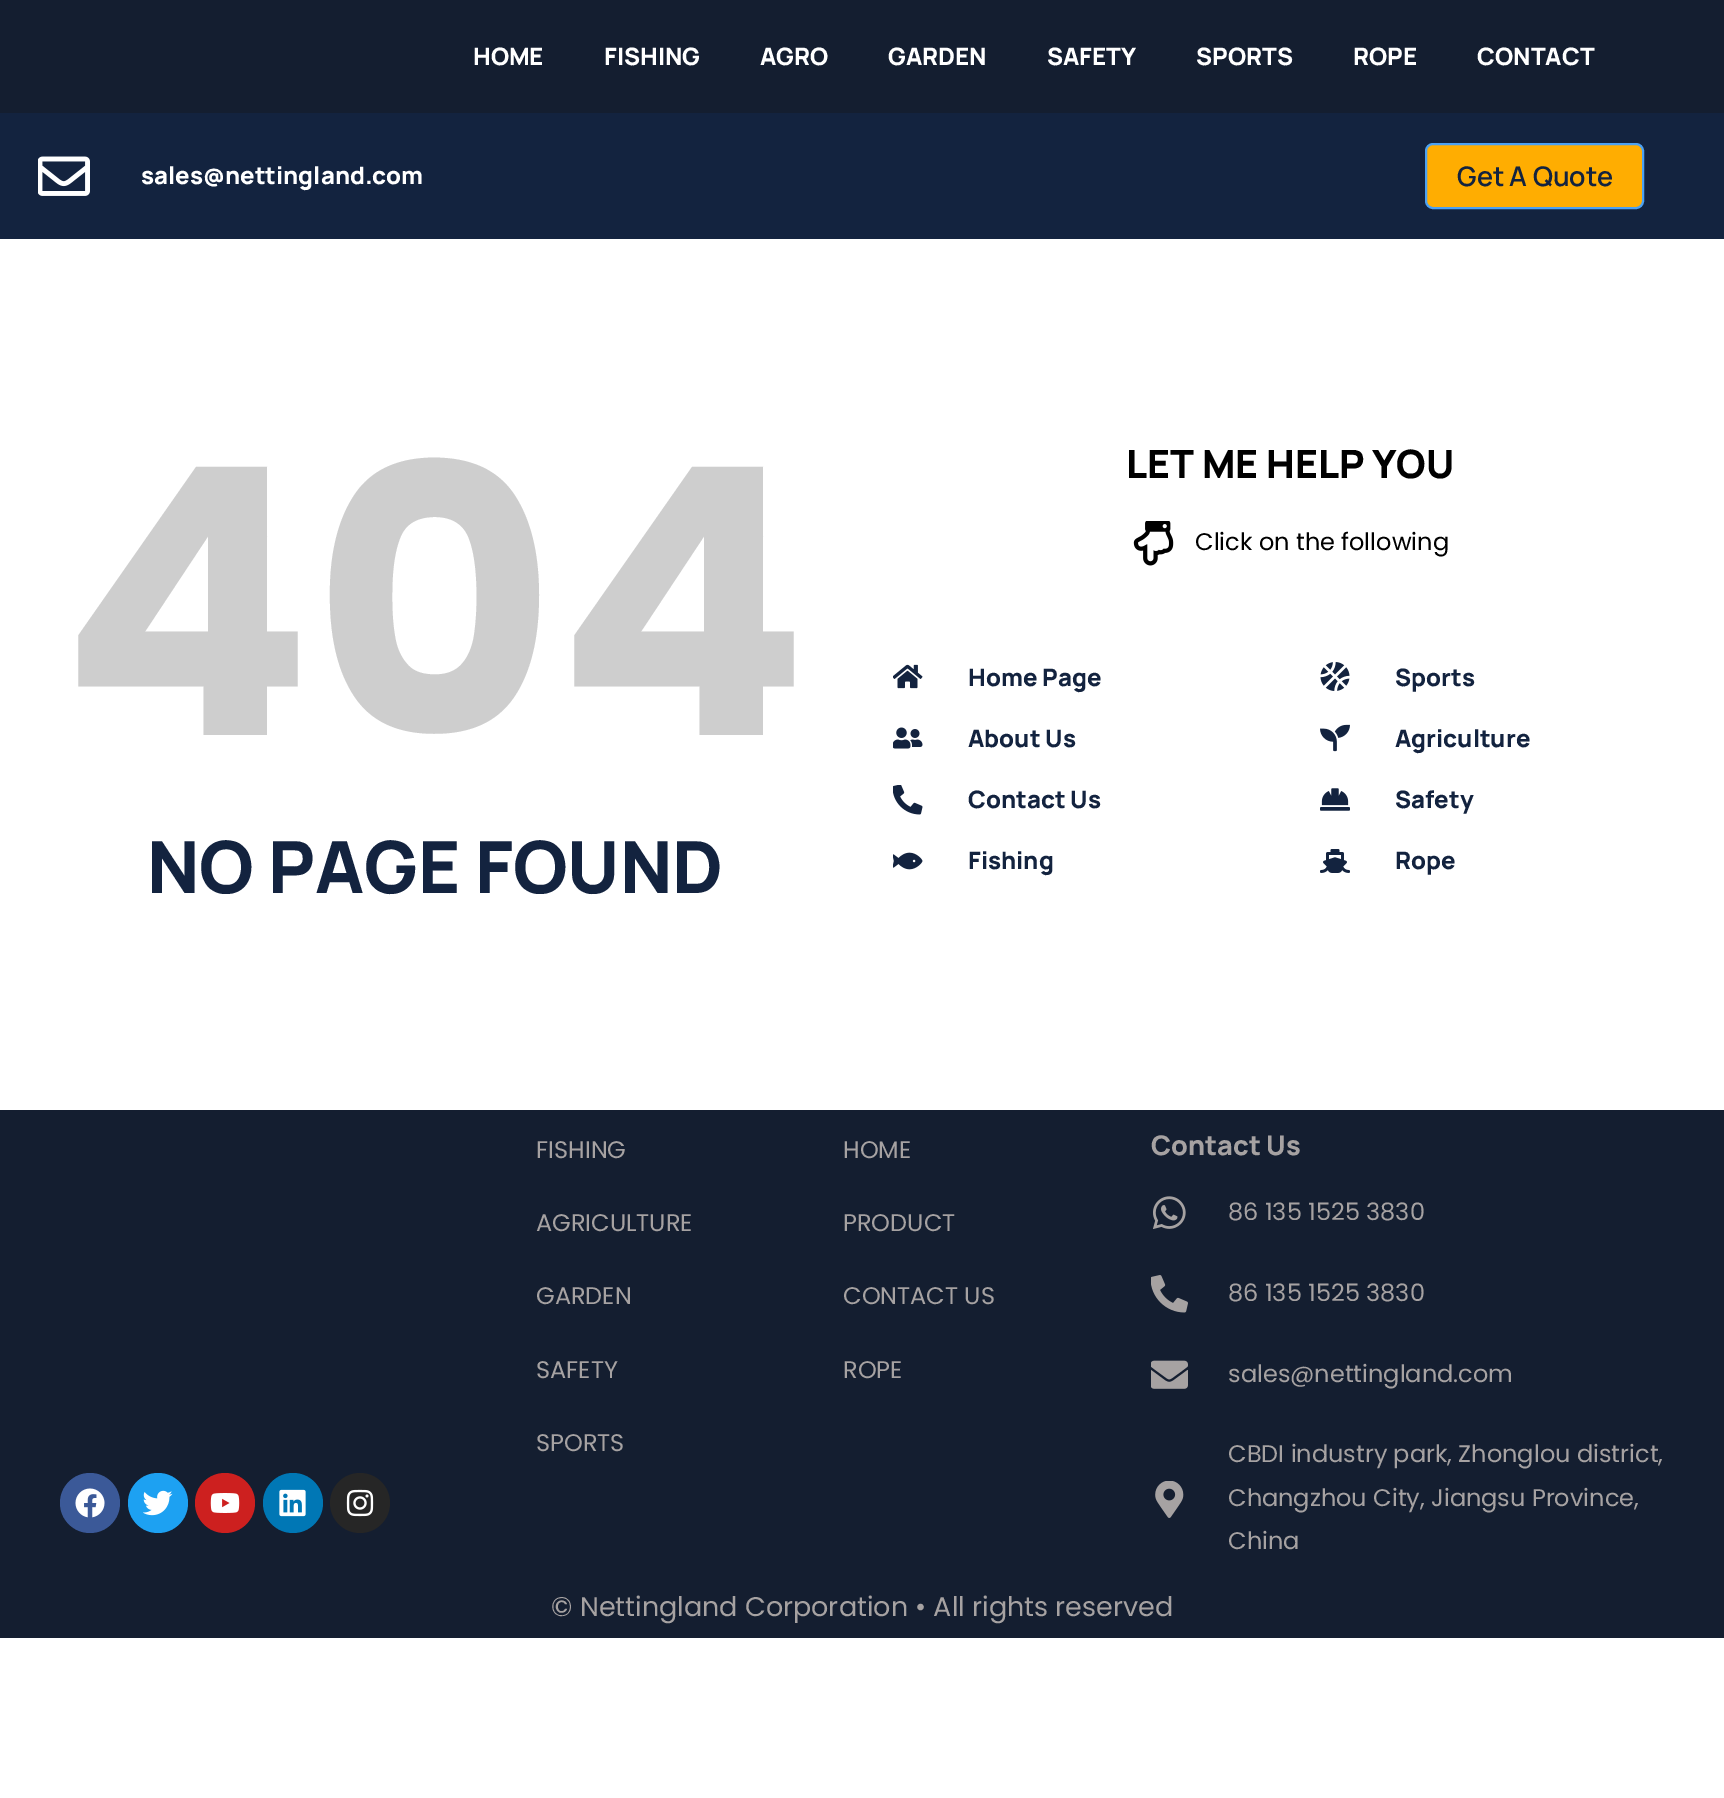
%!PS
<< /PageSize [1724 1798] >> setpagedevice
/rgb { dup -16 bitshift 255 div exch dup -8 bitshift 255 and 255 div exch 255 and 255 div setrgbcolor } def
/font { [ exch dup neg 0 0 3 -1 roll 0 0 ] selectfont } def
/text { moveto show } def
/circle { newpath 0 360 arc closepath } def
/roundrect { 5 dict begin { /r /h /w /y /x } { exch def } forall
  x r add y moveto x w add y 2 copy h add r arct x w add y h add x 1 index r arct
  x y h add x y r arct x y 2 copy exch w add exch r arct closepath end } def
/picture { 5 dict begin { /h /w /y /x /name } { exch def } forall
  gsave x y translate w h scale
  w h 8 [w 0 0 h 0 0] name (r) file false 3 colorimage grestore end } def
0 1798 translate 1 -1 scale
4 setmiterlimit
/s1 { /Manrope-ExtraBold 24 font 16#FFFFFF rgb } def
/s2 { /Manrope-SemiBold 27 font 16#13233F rgb } def
/s3 { /Poppins-Bold 373.5 font 16#CECECE rgb } def
/s4 { /Manrope-ExtraBold 72 font 16#13233F rgb } def
/s5 { /Manrope-ExtraBold 39 font 16#000000 rgb } def
/s6 { /Poppins-Regular 24 font 16#000000 rgb } def
/s7 { /Manrope-ExtraBold 24 font 16#13233F rgb } def
/s8 { /Poppins-Regular 24 font 16#A6A2A2 rgb } def
/s9 { /Manrope-ExtraBold 27 font 16#A6A2A2 rgb } def
/s10 { /Poppins-Regular 27 font 16#A6A2A2 rgb } def
16#FFFFFF rgb
0 0 1724 1798 rectfill
16#141E30 rgb
0 0 1724 113 rectfill
s1
(HOME) 473 65 text
(FISHING) 604 65 text
(AGRO) 760 65 text
(GARDEN) 888 65 text
(SAFETY) 1047 65 text
(SPORTS) 1196 65 text
(ROPE) 1353 65 text
(CONTACT) 1477 65 text
16#13233F rgb
0 113 1724 126 rectfill
(pic1.raw) 38 156 52 40 picture
s1
(sales@nettingland.com) 141 184 text
16#FFAD01 rgb
1426 144 217 64 7 roundrect gsave fill grestore
16#4CA1F2 rgb
2 setlinewidth
stroke
s2
(Get A Quote) 1457 186 text
s3
(404) 60 735 text
s4
(NO PAGE FOUND) 147 893 text
s5
(LET ME HELP YOU) 1126 478 text
(pic2.raw) 1133 521 41 45 picture
s6
(Click on the following) 1195 550 text
(pic3.raw) 893 664 30 25 picture
s7
(Home Page) 968 686 text
(pic4.raw) 893 727 30 22 picture
(About Us) 968 747 text
(pic5.raw) 893 785 30 30 picture
(Contact Us) 968 808 text
(pic6.raw) 893 852 30 18 picture
(Fishing) 968 869 text
(pic7.raw) 1320 662 30 29 picture
(Sports) 1395 686 text
(pic8.raw) 1320 724 30 28 picture
(Agriculture) 1395 747 text
(pic9.raw) 1320 788 30 23 picture
(Safety) 1395 808 text
(pic10.raw) 1320 849 30 24 picture
(Rope) 1395 869 text
16#141E30 rgb
0 1110 1724 528 rectfill
s8
(FISHING) 536 1158 text
(AGRICULTURE) 536 1231 text
(GARDEN) 536 1304 text
(SAFETY) 536 1378 text
(SPORTS) 536 1451 text
(HOME) 843 1158 text
(PRODUCT) 843 1231 text
(CONTACT US) 843 1304 text
(ROPE) 843 1378 text
s9
(Contact Us) 1151 1155 text
(pic11.raw) 1153 1196 33 33 picture
s8
(86 135 1525 3830) 1228 1220 text
(pic12.raw) 1151 1275 37 38 picture
(86 135 1525 3830) 1228 1301 text
(pic13.raw) 1151 1360 37 29 picture
(sales@nettingland.com) 1228 1382 text
(pic14.raw) 1155 1481 29 37 picture
(CBDI industry park, Zhonglou district,) 1228 1462 text
(Changzhou City, Jiangsu Province,) 1228 1506 text
(China) 1228 1549 text
16#3B5998 rgb
90 1503 30 circle fill
(pic15.raw) 75 1488 30 30 picture
16#1DA1F2 rgb
158 1503 30 circle fill
(pic16.raw) 143 1490 30 26 picture
16#CD201F rgb
225 1503 30 circle fill
(pic17.raw) 210 1493 30 20 picture
16#0077B5 rgb
293 1503 30 circle fill
(pic18.raw) 279 1489 27 28 picture
16#262626 rgb
360 1503 30 circle fill
(pic19.raw) 346 1489 28 28 picture
s10
(© Nettingland Corporation • All rights reserved) 551 1616 text
showpage
